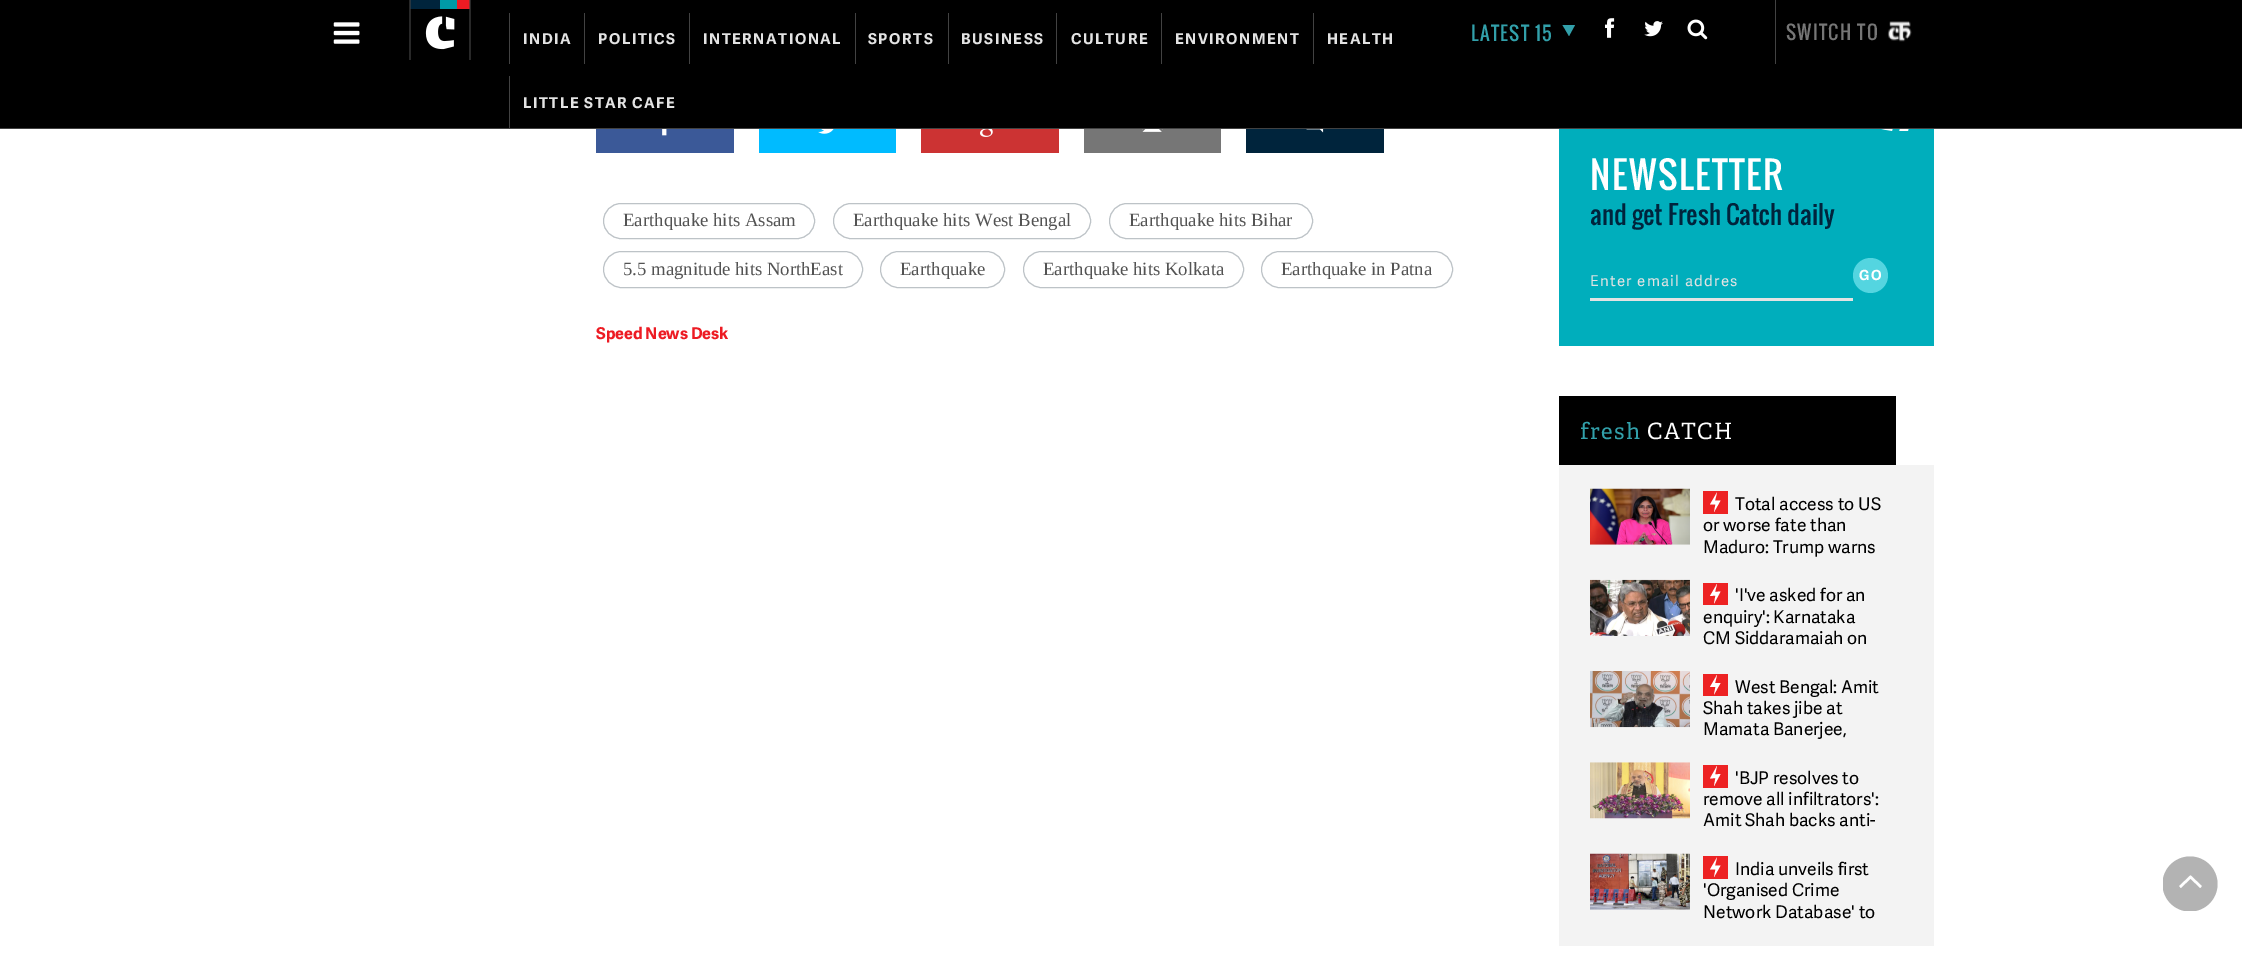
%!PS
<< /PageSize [2242 966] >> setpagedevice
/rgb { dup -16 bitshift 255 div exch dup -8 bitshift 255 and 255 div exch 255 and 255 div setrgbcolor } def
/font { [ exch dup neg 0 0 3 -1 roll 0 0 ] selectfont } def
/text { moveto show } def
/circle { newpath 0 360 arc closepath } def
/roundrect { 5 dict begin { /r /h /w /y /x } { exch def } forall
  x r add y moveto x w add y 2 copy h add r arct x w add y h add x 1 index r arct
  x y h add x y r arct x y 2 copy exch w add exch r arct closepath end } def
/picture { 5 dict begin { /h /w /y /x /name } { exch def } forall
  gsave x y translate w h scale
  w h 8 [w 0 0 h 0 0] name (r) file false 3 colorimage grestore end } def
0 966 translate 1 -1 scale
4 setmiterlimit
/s1 { /LiberationSerif-Regular 18.75 font 16#535353 rgb } def
/s2 { /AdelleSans-Bold 16.25 font 16#ED1B23 rgb } def
/s3 { /Oswald-Regular 25 font 16#00243C rgb } def
/s4 { /AdelleSans-Regular 17.5 font 16#000000 rgb } def
16#FFFFFF rgb
0 0 2242 966 rectfill
16#000000 rgb
0 0 2242 128 rectfill
(pic1.raw) 333 22 27 22 picture
(pic2.raw) 409 0 62 60 picture
16#424242 rgb
509 13 1 51 rectfill
/AdelleSans-Bold 15 font
16#E3E3E3 rgb
523 44 moveto 1.5 0 (INDIA) ashow
16#424242 rgb
584 13 1 51 rectfill
16#E3E3E3 rgb
598 44 moveto 1.5 0 (POLITICS) ashow
16#424242 rgb
689 13 1 51 rectfill
16#E3E3E3 rgb
703 44 moveto 1.5 0 (INTERNATIONAL) ashow
16#424242 rgb
855 13 1 51 rectfill
16#E3E3E3 rgb
868 44 moveto 1.5 0 (SPORTS) ashow
16#424242 rgb
948 13 1 51 rectfill
16#E3E3E3 rgb
961 44 moveto 1.5 0 (BUSINESS) ashow
16#424242 rgb
1056 13 1 51 rectfill
16#E3E3E3 rgb
1071 44 moveto 1.5 0 (CULTURE) ashow
16#424242 rgb
1161 13 1 51 rectfill
16#E3E3E3 rgb
1175 44 moveto 1.5 0 (ENVIRONMENT) ashow
16#424242 rgb
1313 13 1 51 rectfill
16#E3E3E3 rgb
1327 44 moveto 1.5 0 (HEALTH) ashow
16#424242 rgb
509 76 1 52 rectfill
16#E3E3E3 rgb
523 108 moveto 1.5 0 (LITTLE STAR CAFE) ashow
/Oswald-Regular 18.75 font
16#32A0AA rgb
1471 41 moveto 1.25 0 (LATEST 15) ashow
1569 36 moveto 1562.5 25 lineto 1575 25 lineto closepath eofill
(pic3.raw) 1605 18 10 20 picture
(pic4.raw) 1644 21 19 16 picture
(pic5.raw) 1687 19 21 21 picture
16#424242 rgb
1775 0 1 64 rectfill
16#767676 rgb
1786 40 moveto 1.25 0 (SWITCH TO) ashow
(pic6.raw) 1887 21 25 21 picture
16#424242 rgb
0 128 2242 1 rectfill
16#3B5998 rgb
596 129 138 24 rectfill
(pic7.raw) 662 129 5 7 picture
16#00BBFF rgb
759 129 137 24 rectfill
(pic8.raw) 818 129 16 5 picture
16#CC3333 rgb
921 129 138 24 rectfill
(pic9.raw) 980 129 13 8 picture
16#767676 rgb
1084 129 137 24 rectfill
(pic10.raw) 1142 129 21 3 picture
16#00243C rgb
1246 129 138 24 rectfill
(pic11.raw) 1306 129 18 4 picture
16#BDC3C7 rgb
603.5 203.5 211 35 17.5 roundrect stroke
s1
(Earthquake hits Assam) 623 226 text
16#BDC3C7 rgb
833.5 203.5 257 35 17.5 roundrect stroke
s1
(Earthquake hits West Bengal) 853 226 text
16#BDC3C7 rgb
1109.5 203.5 203 35 17.5 roundrect stroke
s1
(Earthquake hits Bihar) 1129 226 text
16#BDC3C7 rgb
603.5 251.5 259 36 18 roundrect stroke
s1
(5.5 magnitude hits NorthEast) 623 275 text
16#BDC3C7 rgb
880.5 251.5 124 36 18 roundrect stroke
s1
(Earthquake) 900 275 text
16#BDC3C7 rgb
1023.5 251.5 220 36 18 roundrect stroke
s1
(Earthquake hits Kolkata) 1043 275 text
16#BDC3C7 rgb
1261.5 251.5 191 36 18 roundrect stroke
s1
(Earthquake in Patna) 1281 275 text
s2
(Speed News Desk) 596 339 text
16#00AEBC rgb
1559 129 375 217 rectfill
(pic12.raw) 1881 129 28 2 picture
/Oswald-Regular 36.25 font
16#FFFFFF rgb
1590 190 moveto 1.5 0 (NEWSLETTER) ashow
s3
(and get Fresh Catch daily) 1590 225 text
16#E3E3E3 rgb
1590 298 263 3 rectfill
/AdelleSans-Regular 15 font
1590 286 moveto 1.25 0 (Enter email addres) ashow
16#54D5E0 rgb
1870.5 275.5 17.5 circle fill
/AdelleSans-Bold 14 font
16#FFFFFF rgb
1859 280 moveto 1.25 0 (GO) ashow
16#000000 rgb
1559 396 337 69 rectfill
/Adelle-Regular 22.5 font
16#32A0AA rgb
1580 439 moveto 1.25 0 (fresh) ashow
16#FFFFFF rgb
1647 439 moveto 1.25 0 (CATCH) ashow
16#F3F3F3 rgb
1559 465 375 481 rectfill
(pic13.raw) 1590 488 100 57 picture
16#ED2223 rgb
1703 491 25 23 rectfill
16#FFFFFF rgb
1714 512 moveto 1715.5 504.5 lineto 1710 504.5 lineto 1717 492.5 lineto 1715 500.5 lineto 1720.5 500.5 lineto closepath eofill
s4
(Total access to US) 1735 510 text
(or worse fate than) 1703 531 text
(Maduro: Trump warns) 1703 553 text
(pic14.raw) 1590 579 100 57 picture
16#ED2223 rgb
1703 583 25 22 rectfill
16#FFFFFF rgb
1714 603.5 moveto 1715.5 595.5 lineto 1710 596 lineto 1717 584 lineto 1715 592 lineto 1720.5 591.5 lineto closepath eofill
s4
('I've asked for an) 1735 601 text
(enquiry': Karnataka) 1703 623 text
(CM Siddaramaiah on) 1703 644 text
(pic15.raw) 1590 671 100 57 picture
16#ED2223 rgb
1703 674 25 22 rectfill
16#FFFFFF rgb
1714 694.5 moveto 1715.5 687 lineto 1710 687 lineto 1717 675 lineto 1715 683 lineto 1720.5 683 lineto closepath eofill
s4
(West Bengal: Amit) 1735 693 text
(Shah takes jibe at) 1703 714 text
(Mamata Banerjee,) 1703 735 text
(pic16.raw) 1590 762 100 57 picture
16#ED2223 rgb
1703 765 25 23 rectfill
16#FFFFFF rgb
1714 786 moveto 1715.5 778 lineto 1710 778.5 lineto 1717 766 lineto 1715 774.5 lineto 1720.5 774 lineto closepath eofill
s4
('BJP resolves to) 1735 784 text
(remove all infiltrators':) 1703 805 text
(Amit Shah backs anti-) 1703 826 text
(pic17.raw) 1590 853 100 57 picture
16#ED2223 rgb
1703 856 25 23 rectfill
16#FFFFFF rgb
1714 877 moveto 1715.5 869.5 lineto 1710 869.5 lineto 1717 857.5 lineto 1715 865.5 lineto 1720.5 865.5 lineto closepath eofill
s4
(India unveils first) 1735 875 text
('Organised Crime) 1703 896 text
(Network Database' to) 1703 918 text
gsave
2163 856 55 55 rectclip
16#B3B3B3 rgb
2190 884 27.5 circle fill
grestore
16#FFFFFF rgb
2.5 setlinewidth
2180 887 moveto 2190.5 877 lineto 2201 887 lineto stroke
showpage
